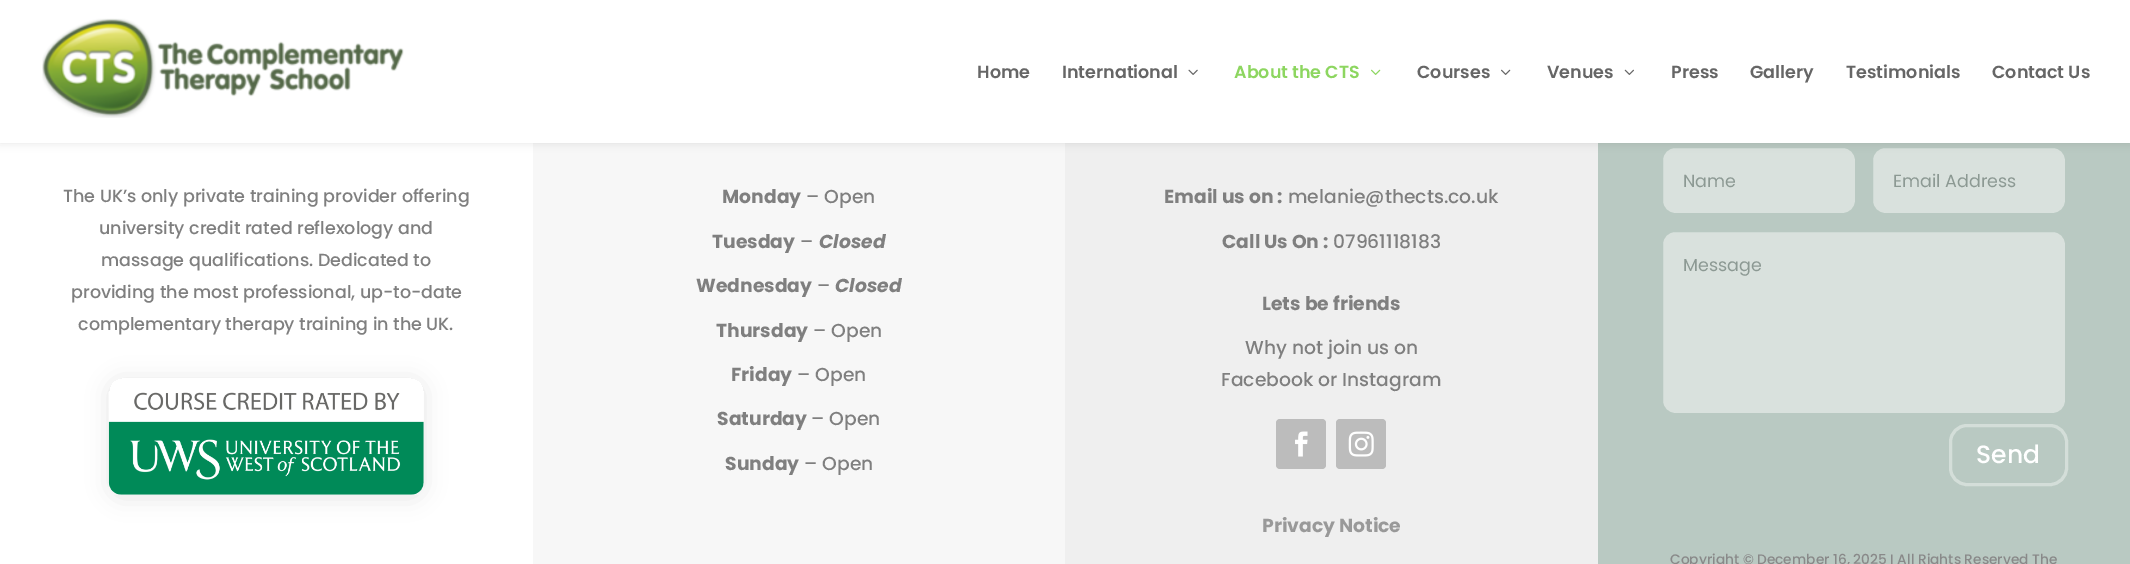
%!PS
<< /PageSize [2130 564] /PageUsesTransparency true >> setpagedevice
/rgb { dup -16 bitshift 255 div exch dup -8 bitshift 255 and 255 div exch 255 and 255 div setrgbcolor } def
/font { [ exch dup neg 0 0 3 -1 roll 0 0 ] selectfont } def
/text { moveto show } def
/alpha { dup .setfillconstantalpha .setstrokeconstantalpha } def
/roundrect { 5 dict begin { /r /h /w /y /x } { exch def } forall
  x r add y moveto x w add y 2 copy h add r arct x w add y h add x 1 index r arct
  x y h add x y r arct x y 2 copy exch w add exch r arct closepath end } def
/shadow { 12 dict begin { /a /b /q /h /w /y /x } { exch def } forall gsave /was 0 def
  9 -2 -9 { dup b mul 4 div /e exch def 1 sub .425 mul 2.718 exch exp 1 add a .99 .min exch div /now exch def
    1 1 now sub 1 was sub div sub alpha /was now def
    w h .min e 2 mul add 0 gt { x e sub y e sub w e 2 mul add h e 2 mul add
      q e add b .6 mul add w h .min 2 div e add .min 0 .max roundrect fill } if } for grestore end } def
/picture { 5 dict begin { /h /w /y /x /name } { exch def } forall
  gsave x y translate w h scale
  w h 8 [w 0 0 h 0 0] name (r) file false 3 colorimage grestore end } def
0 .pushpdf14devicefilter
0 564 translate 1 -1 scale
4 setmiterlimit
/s1 { /Poppins-SemiBold 17.5 font 16#666666 rgb } def
/s2 { /Poppins-SemiBold 17.5 font 16#8DD660 rgb } def
/s3 { /Poppins-Medium 17.5 font 16#7F7F7F rgb } def
/s4 { /Poppins-Bold 18.75 font 16#7F7F7F rgb } def
/s5 { /Poppins-Medium 18.75 font 16#7F7F7F rgb } def
/s6 { /Poppins-BoldItalic 18.75 font 16#7F7F7F rgb } def
/s7 { /Poppins-Bold 18.75 font 16#999999 rgb } def
/s8 { /Poppins-Regular 17.5 font 16#8C9993 rgb } def
/s9 { /Poppins-Medium 25 font 16#FFFFFF rgb } def
/s10 { /Poppins-Medium 13.75 font 16#898989 rgb } def
16#FFFFFF rgb
0 0 2130 564 rectfill
16#F7F7F7 rgb
533 143 532 421 rectfill
16#EFEFEF rgb
1065 143 533 421 rectfill
16#B9C9C2 rgb
1598 143 532 421 rectfill
16#D9E1DD rgb
1661.5 146.5 195 68 13.5 roundrect gsave fill grestore
16#B9C9C2 rgb
3 setlinewidth
stroke
16#D9E1DD rgb
1871.5 146.5 195 68 13.5 roundrect gsave fill grestore
16#B9C9C2 rgb
stroke
16#000000 rgb
0 0 2130 143 0 4.5 0.1 shadow
16#FFFFFF rgb
0 0 2130 143 rectfill
(pic1.raw) 42 18 362 100 picture
s1
(Home) 977 78 text
(International) 1062 78 text
(pic2.raw) 1188 69 10 6 picture
s2
(About the CTS) 1234 78 text
(pic3.raw) 1371 69 10 6 picture
s1
(Courses) 1417 78 text
(pic4.raw) 1501 69 10 6 picture
(Venues) 1547 78 text
(pic5.raw) 1624 69 10 6 picture
(Press) 1671 78 text
(Gallery) 1750 78 text
(Testimonials) 1846 78 text
(Contact Us) 1992 78 text
s3
(The UK’s only private training provider offering) 63 202 text
(university credit rated reflexology and) 99 234 text
(massage qualifications. Dedicated to) 101 266 text
(providing the most professional, up-to-date) 71 298 text
(complementary therapy training in the UK.) 78 330 text
gsave
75 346 moveto 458 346 lineto 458 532 lineto 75 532 lineto closepath 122 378 moveto 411 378 lineto 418 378 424 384 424 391 curveto 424 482 lineto 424 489 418 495 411 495 curveto 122 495 lineto 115 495 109 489 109 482 curveto 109 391 lineto 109 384 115 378 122 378 curveto closepath eoclip newpath
16#000000 rgb
109 380 315 118 13 11 0.1 shadow
grestore
(pic6.raw) 108 392 316 103 picture
s4
(Monday) 722 203 text
s5
(– Open) 806 203 text
s4
(Tuesday) 712 248 text
s5
(–) 800 248 text
s6
(Closed) 819 248 text
s4
(Wednesday) 696 292 text
s5
(–) 817 292 text
s6
(Closed) 835 292 text
s4
(Thursday) 716 337 text
s5
(– Open) 813 337 text
s4
(Friday) 731 381 text
s5
(– Open) 797 381 text
s4
(Saturday) 717 425 text
s5
(– Open) 811 425 text
s4
(Sunday) 725 470 text
s5
(– Open) 804 470 text
s4
(Email us on :) 1164 203 text
s5
(melanie@thects.co.uk) 1288 203 text
s4
(Call Us On :) 1222 248 text
s5
(07961118183) 1333 248 text
s4
(Lets be friends) 1262 310 text
s5
(Why not join us on) 1245 354 text
(Facebook or Instagram) 1221 386 text
16#BCBCBC rgb
1276 419 50 50 4 roundrect fill
(pic7.raw) 1295 431 13 26 picture
1336 419 50 50 4 roundrect fill
(pic8.raw) 1348 431 26 26 picture
s7
(Privacy Notice) 1262 532 text
s8
(Name) 1683 187 text
(Email Address) 1893 187 text
16#D9E1DD rgb
1661.5 230.5 405 184 13.5 roundrect gsave fill grestore
16#B9C9C2 rgb
stroke
s8
(Message) 1683 271 text
16#D4DED9 rgb
1950.5 425.5 116 59 16.5 roundrect stroke
s9
(Send) 1976 463 text
s10
(Copyright © December 16, 2025 I All Rights Reserved The) 1670 564 text
.poppdf14devicefilter showpage
